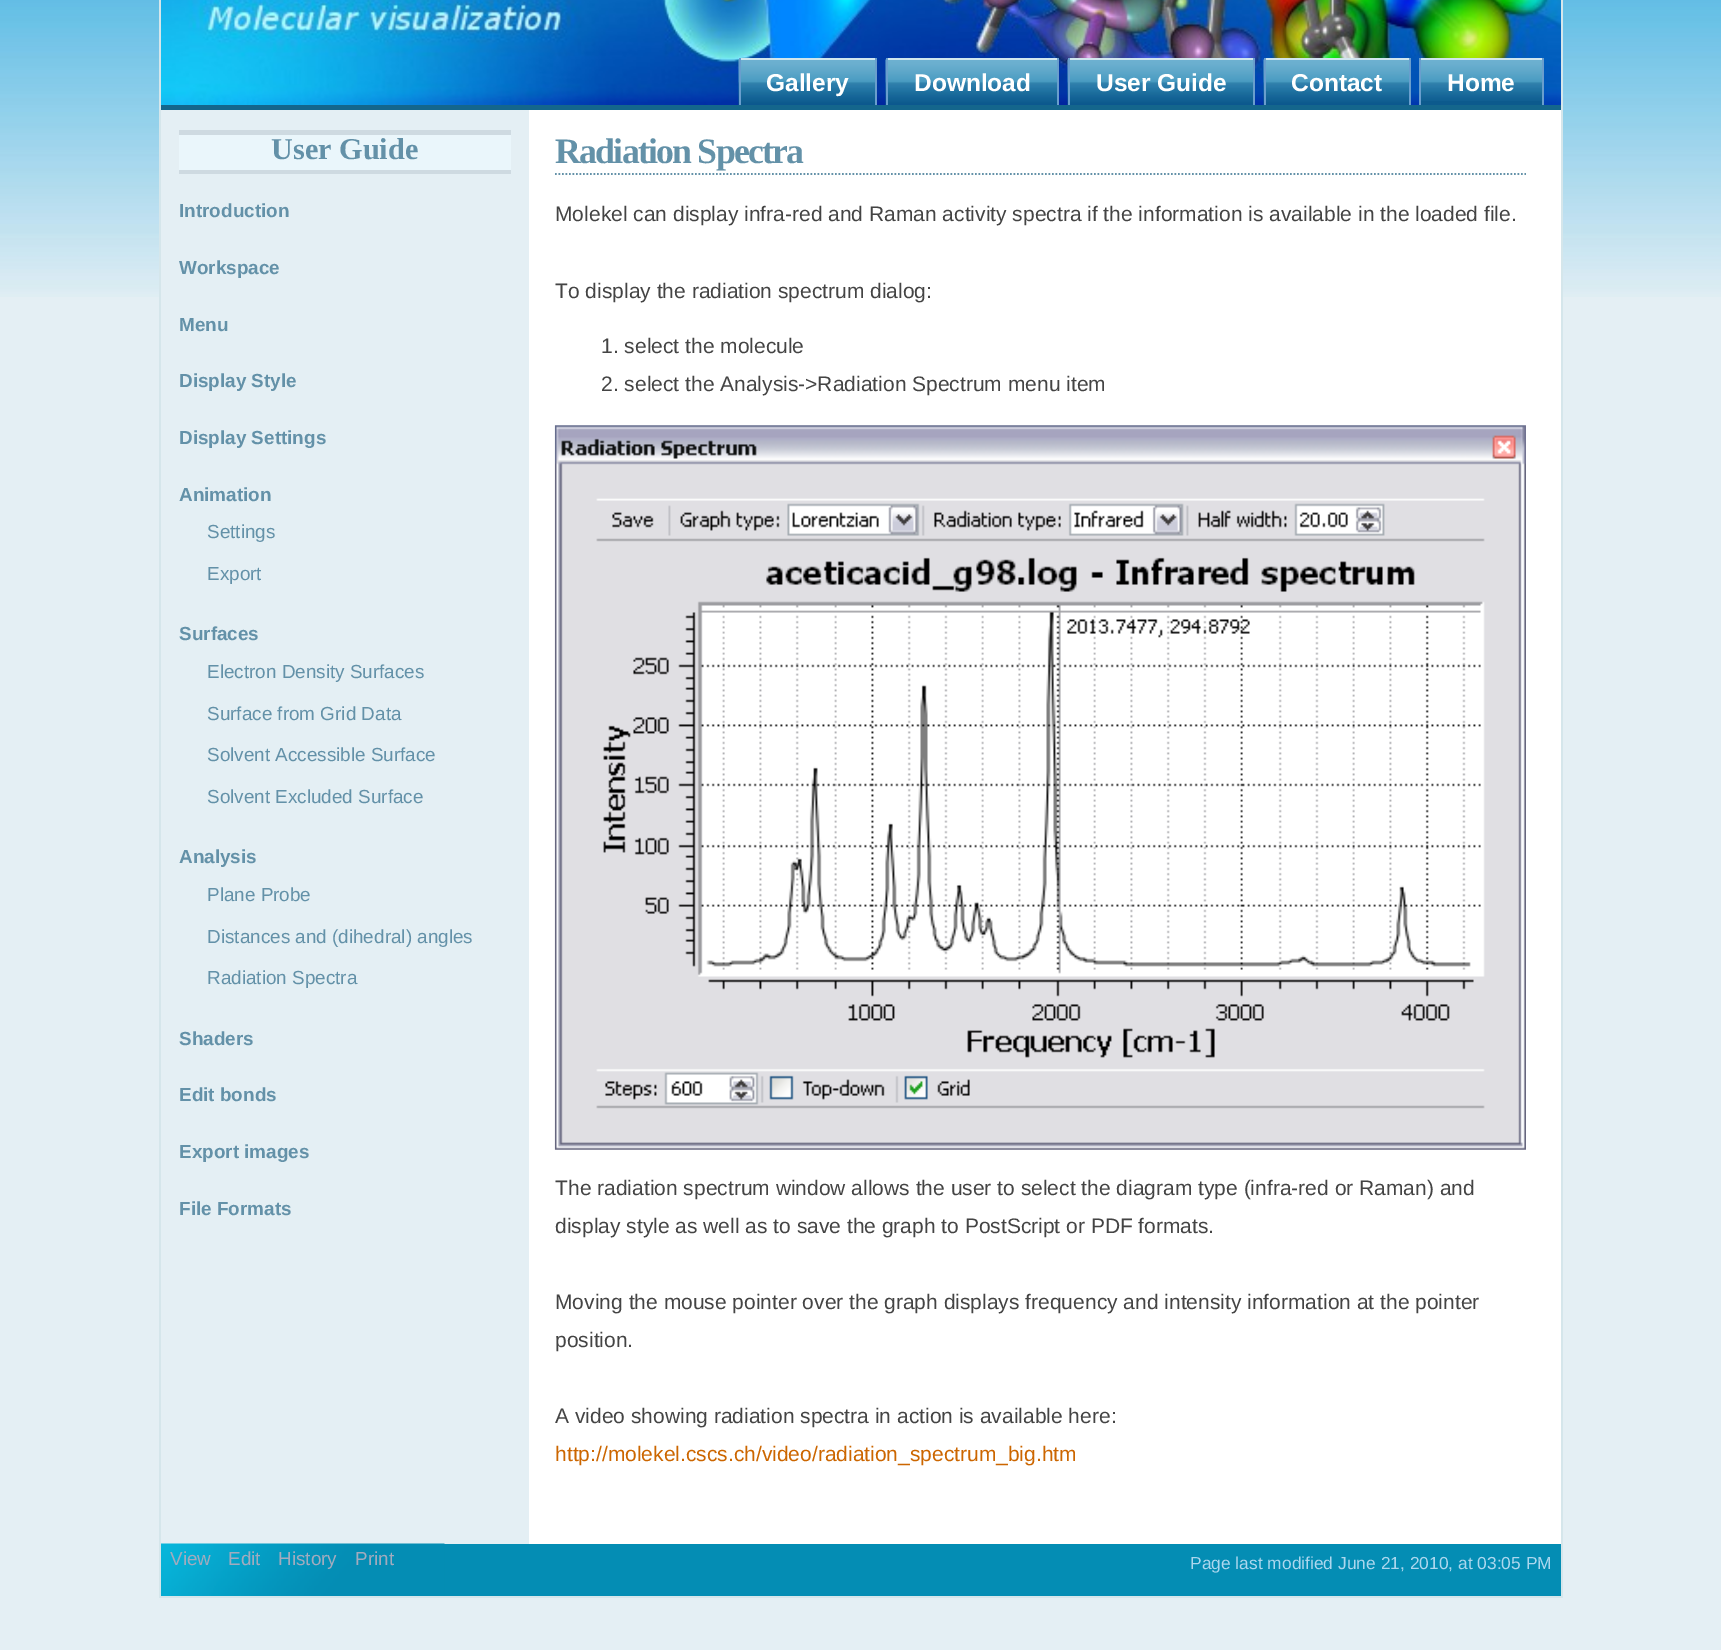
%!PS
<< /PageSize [1721 1650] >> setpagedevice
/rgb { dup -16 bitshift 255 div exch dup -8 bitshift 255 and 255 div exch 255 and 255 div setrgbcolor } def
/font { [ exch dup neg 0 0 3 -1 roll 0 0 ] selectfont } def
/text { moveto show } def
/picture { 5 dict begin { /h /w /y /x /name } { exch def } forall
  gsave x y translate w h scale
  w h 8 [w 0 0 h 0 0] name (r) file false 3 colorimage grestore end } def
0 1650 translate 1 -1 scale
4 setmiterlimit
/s1 { /LiberationSans-Bold 24.5 font 16#FFFFFF rgb } def
/s2 { /LiberationSerif-Bold 30.25 font 16#6391A8 rgb } def
/s3 { /LiberationSans-Bold 18.9 font 16#6391A8 rgb } def
/s4 { /LiberationSans-Regular 18.9 font 16#6391A8 rgb } def
/s5 { /LiberationSans-Regular 21 font 16#444444 rgb } def
/s6 { /LiberationSans-Regular 21 font 16#CC6600 rgb } def
/s7 { /LiberationSans-Regular 18.9 font 16#A2ABBE rgb } def
/s8 { /LiberationSans-Regular 17.4 font 16#ACD7EE rgb } def
16#E4EFF4 rgb
0 0 1721 1650 rectfill
(pic1.raw) 0 0 1721 297 picture
16#FFFFFF rgb
529 110 1032 1434 rectfill
16#E4EFF4 rgb
161 110 368 187 rectfill
16#D5E6EB rgb
1561 0 2 1598 rectfill
159 1596 1404 2 rectfill
159 0 2 1598 rectfill
(pic2.raw) 161 0 1400 105 picture
16#14668C rgb
161 105 1400 5 rectfill
(pic3.raw) 738 59 137 46 picture
16#D0E6EE rgb
739 58 138 2 rectfill
16#699ECD rgb
875 58 2 47 rectfill
739 58 2 47 rectfill
s1
(Gallery) 766 91 text
(pic4.raw) 885 59 172 46 picture
16#D0E6EE rgb
886 58 173 2 rectfill
16#699ECD rgb
1057 58 2 47 rectfill
886 58 2 47 rectfill
s1
(Download) 914 91 text
(pic5.raw) 1067 59 186 46 picture
16#D0E6EE rgb
1068 58 187 2 rectfill
16#699ECD rgb
1253 58 2 47 rectfill
1068 58 2 47 rectfill
s1
(User Guide) 1096 91 text
(pic6.raw) 1263 59 146 46 picture
16#D0E6EE rgb
1264 58 147 2 rectfill
16#699ECD rgb
1409 58 2 47 rectfill
1264 58 2 47 rectfill
s1
(Contact) 1291 91 text
16#0C5A8D rgb
1421 101 121 4 rectfill
(pic7.raw) 1421 60 121 41 picture
16#D0E6EE rgb
1419 58 125 2 rectfill
16#699ECD rgb
1542 58 2 47 rectfill
1419 58 2 47 rectfill
s1
(Home) 1447 91 text
16#EAF6FB rgb
179 135 332 35 rectfill
16#CEDAE1 rgb
179 130 332 5 rectfill
179 170 332 4 rectfill
s2
(User Guide) 271 159 text
s3
(Introduction) 179 217 text
(Workspace) 179 274 text
(Menu) 179 331 text
(Display Style) 179 387 text
(Display Settings) 179 444 text
(Animation) 179 501 text
s4
(Settings) 207 538 text
(Export) 207 580 text
s3
(Surfaces) 179 640 text
s4
(Electron Density Surfaces) 207 678 text
(Surface from Grid Data) 207 720 text
(Solvent Accessible Surface) 207 761 text
(Solvent Excluded Surface) 207 803 text
s3
(Analysis) 179 863 text
s4
(Plane Probe) 207 901 text
(Distances and \(dihedral\) angles) 207 943 text
(Radiation Spectra) 207 984 text
s3
(Shaders) 179 1045 text
(Edit bonds) 179 1101 text
(Export images) 179 1158 text
(File Formats) 179 1215 text
1.8 setlinewidth
[1.75 1.75] 0 setdash
555 174 moveto 1526 174 lineto stroke
/LiberationSerif-Bold 35.75 font
555 163 moveto -1.75 0 (Radiation Spectra) ashow
s5
(Molekel can display infra-red and Raman activity spectra if the information is available in the loaded file.) 555 221 text
(To display the radiation spectrum dialog:) 555 298 text
(1. select the molecule) 601 353 text
(2. select the Analysis->Radiation Spectrum menu item) 601 391 text
(pic8.raw) 554 425 972 725 picture
(The radiation spectrum window allows the user to select the diagram type \(infra-red or Raman\) and) 555 1195 text
(display style as well as to save the graph to PostScript or PDF formats.) 555 1233 text
(Moving the mouse pointer over the graph displays frequency and intensity information at the pointer) 555 1309 text
(position.) 555 1347 text
(A video showing radiation spectra in action is available here:) 555 1423 text
s6
(http://molekel.cscs.ch/video/radiation_spectrum_big.htm) 555 1461 text
16#048DB4 rgb
444 1544 1117 52 rectfill
(pic9.raw) 161 1543 284 53 picture
s7
(View) 170 1565 text
(Edit) 228 1565 text
(History) 278 1565 text
(Print) 355 1565 text
s8
(Page last modified June 21, 2010, at 03:05 PM) 1190 1569 text
showpage
